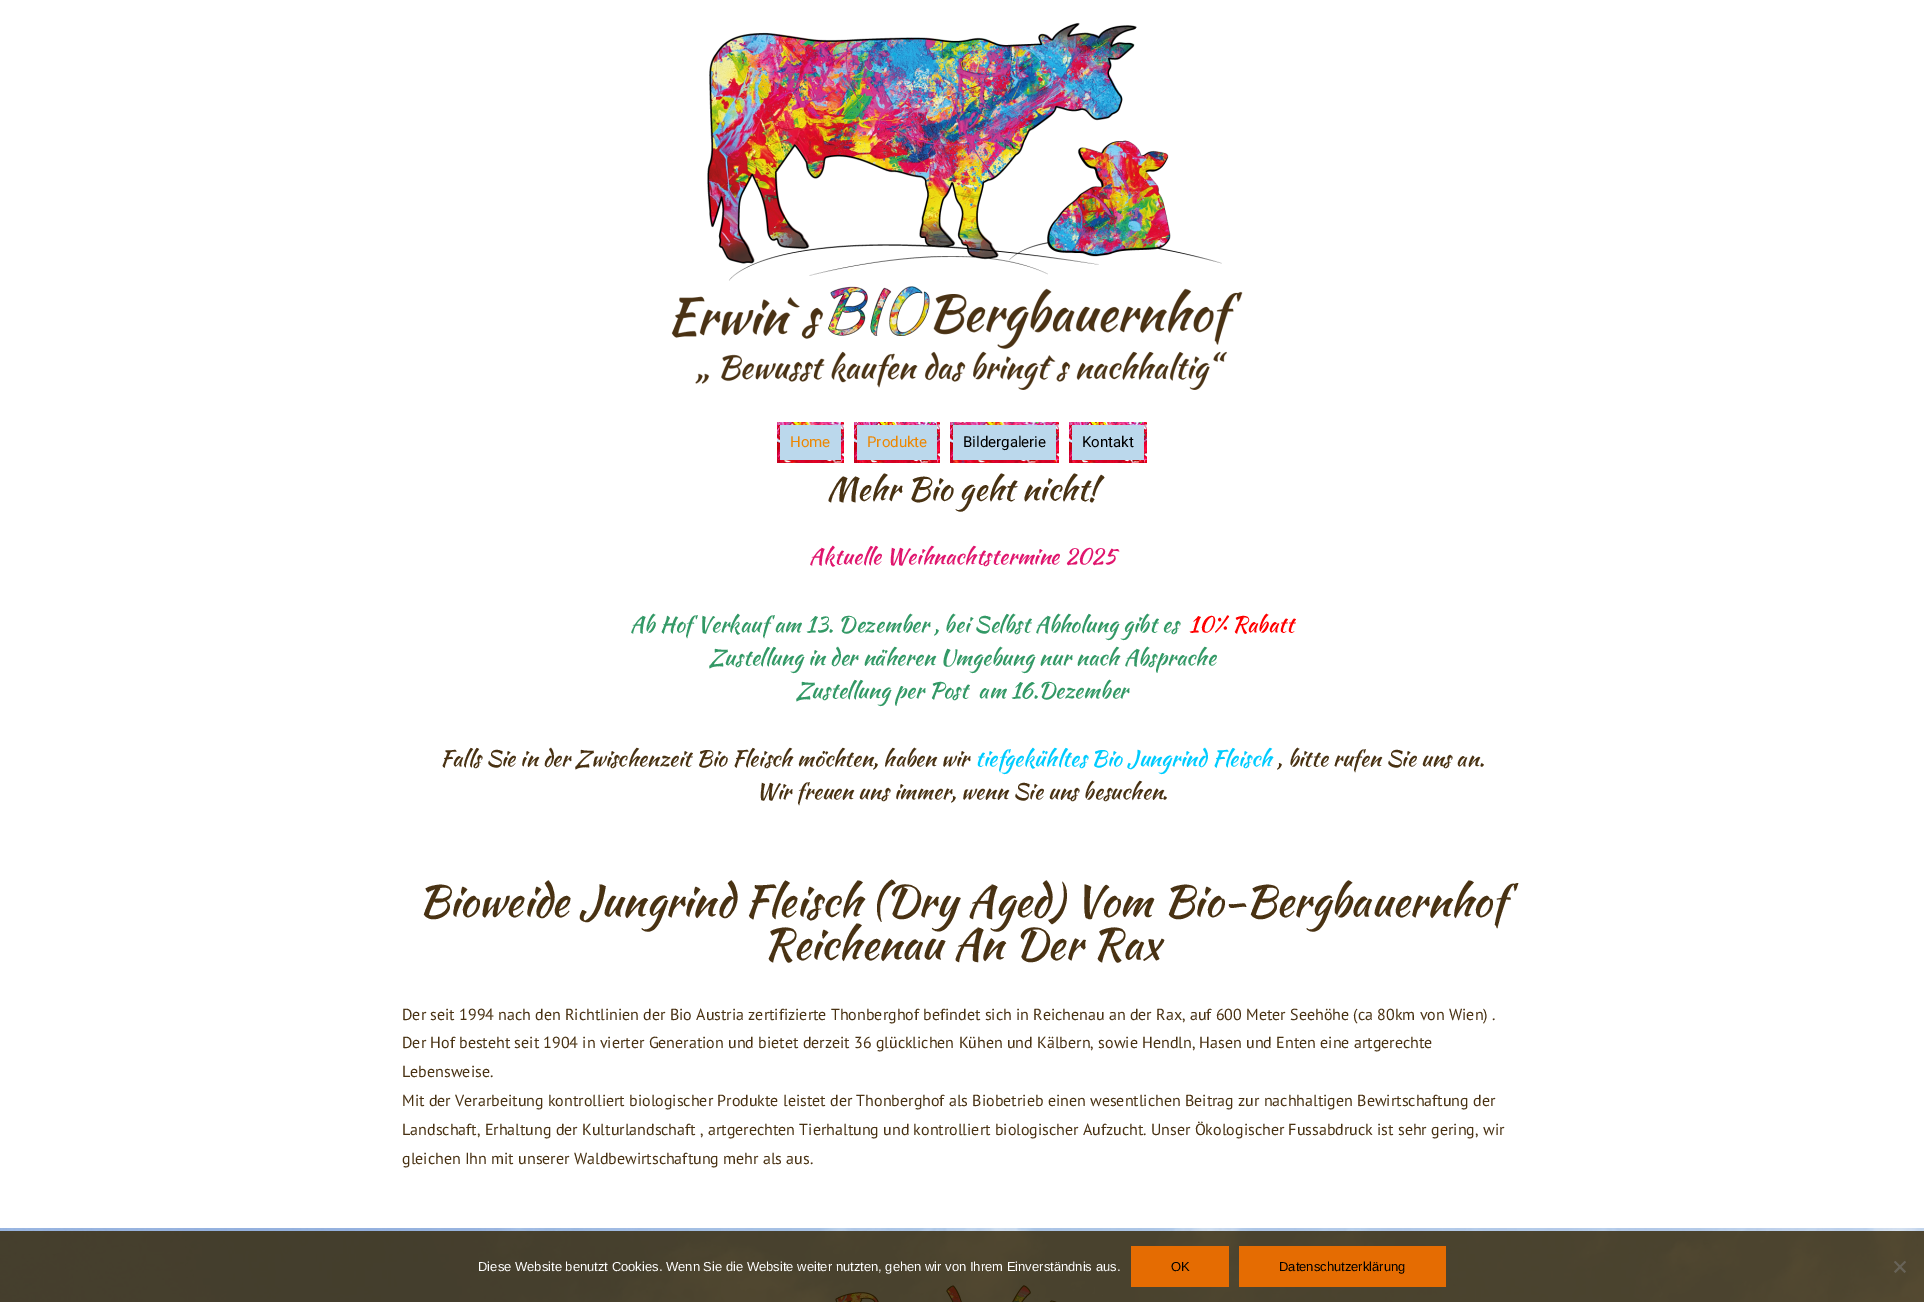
%!PS
<< /PageSize [1924 1302] >> setpagedevice
/rgb { dup -16 bitshift 255 div exch dup -8 bitshift 255 and 255 div exch 255 and 255 div setrgbcolor } def
/font { [ exch dup neg 0 0 3 -1 roll 0 0 ] selectfont } def
/text { moveto show } def
/picture { 5 dict begin { /h /w /y /x /name } { exch def } forall
  gsave x y translate w h scale
  w h 8 [w 0 0 h 0 0] name (r) file false 3 colorimage grestore end } def
0 1302 translate 1 -1 scale
4 setmiterlimit
/s1 { /Roboto-Regular 15 font 16#ED8702 rgb } def
/s2 { /Roboto-Regular 15 font 16#000000 rgb } def
/s3 { /KaushanScript-Regular 32 font 16#493213 rgb } def
/s4 { /KaushanScript-Regular 22 font 16#E0166E rgb } def
/s5 { /KaushanScript-Regular 22 font 16#339966 rgb } def
/s6 { /KaushanScript-Regular 22 font 16#FF0000 rgb } def
/s7 { /KaushanScript-Regular 22 font 16#493213 rgb } def
/s8 { /KaushanScript-Regular 22 font 16#00CCFF rgb } def
/s9 { /KaushanScript-Regular 43 font 16#493213 rgb } def
/s10 { /PTSans-Regular 16 font 16#493213 rgb } def
/s11 { /LiberationSans-Regular 13 font 16#FFFFFF rgb } def
/s12 { /LiberationSans-Regular 13 font 16#000000 rgb } def
16#FFFFFF rgb
0 0 1924 1302 rectfill
(pic1.raw) 671 22 572 368 picture
16#BBD8EC rgb
780 425 61 35 rectfill
(pic2.raw) 777 422 67 41 picture
s1
(Home) 790 447 text
16#BBD8EC rgb
857 425 80 35 rectfill
(pic3.raw) 854 422 86 41 picture
s1
(Produkte) 867 447 text
16#BBD8EC rgb
953 425 103 35 rectfill
(pic4.raw) 950 422 109 41 picture
s2
(Bildergalerie) 963 447 text
16#BBD8EC rgb
1072 425 72 35 rectfill
(pic5.raw) 1069 422 78 41 picture
s2
(Kontakt) 1082 447 text
s3
(Mehr Bio geht nicht!) 827 500 text
s4
(Aktuelle Weihnachtstermine 2025) 809 564 text
s5
(Ab Hof Verkauf am 13. Dezember , bei Selbst Abholung gibt es) 630 632 text
s6
(10% Rabatt) 1189 632 text
s5
(Zustellung in der näheren Umgebung nur nach Absprache) 709 665 text
(Zustellung per Post  am 16.Dezember) 796 698 text
s7
(Falls Sie in der Zwischenzeit Bio Fleisch möchten, haben wir) 440 766 text
s8
(tiefgekühltes Bio Jungrind Fleisch) 975 766 text
s7
(, bitte rufen Sie uns an.) 1277 766 text
(Wir freuen uns immer, wenn Sie uns besuchen.) 756 799 text
s9
(Bioweide Jungrind Fleisch \(Dry Aged\) Vom Bio-Bergbauernhof) 418 916 text
(Reichenau An Der Rax) 763 959 text
s10
(Der seit 1994 nach den Richtlinien der Bio Austria zertifizierte Thonberghof befindet sich in Reichenau an der Rax, auf 600 Meter Seehöhe \(ca 80km von Wien\) .) 402 1020 text
(Der Hof besteht seit 1904 in vierter Generation und bietet derzeit 36 glücklichen Kühen und Kälbern, sowie Hendln, Hasen und Enten eine artgerechte) 402 1048 text
(Lebensweise.) 402 1077 text
(Mit der Verarbeitung kontrolliert biologischer Produkte leistet der Thonberghof als Biobetrieb einen wesentlichen Beitrag zur nachhaltigen Bewirtschaftung der) 402 1106 text
(Landschaft, Erhaltung der Kulturlandschaft , artgerechten Tierhaltung und kontrolliert biologischer Aufzucht. Unser Ökologischer Fussabdruck ist sehr gering, wir) 402 1135 text
(gleichen Ihn mit unserer Waldbewirtschaftung mehr als aus.) 402 1164 text
(pic6.raw) 0 1228 1924 74 picture
(pic7.raw) 835 1285 222 17 picture
s11
(Diese Website benutzt Cookies. Wenn Sie die Website weiter nutzten, gehen wir von Ihrem Einverständnis aus.) 478 1271 text
16#E56C02 rgb
1131 1246 98 41 rectfill
s12
(OK) 1171 1271 text
16#E56C02 rgb
1239 1246 207 41 rectfill
s12
(Datenschutzerklärung) 1279 1271 text
16#686358 rgb
1904.5 1261 moveto 1906 1262 lineto 1895.5 1273 lineto 1894 1271.5 lineto closepath fill
1894 1262 moveto 1895.5 1261 lineto 1906 1271.5 lineto 1904.5 1273 lineto closepath fill
showpage
